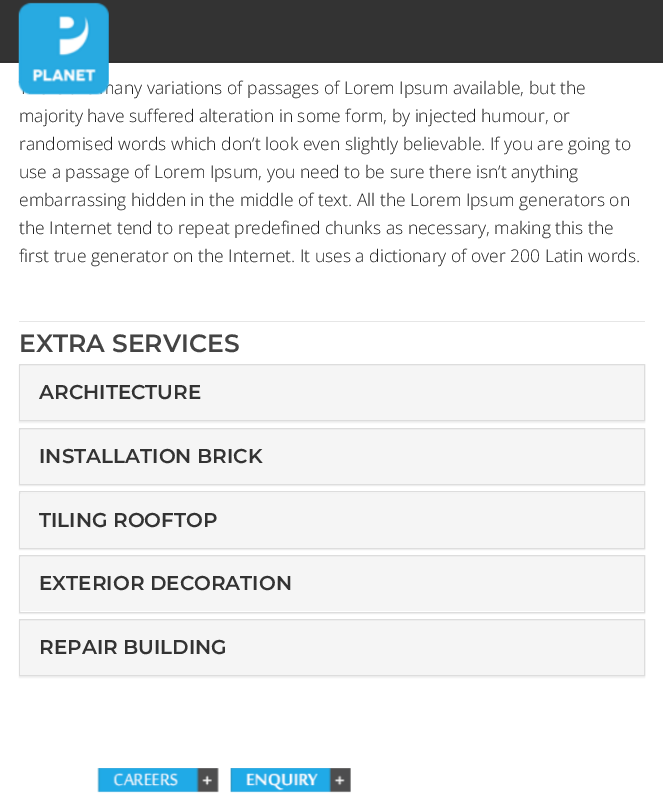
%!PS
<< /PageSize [663 799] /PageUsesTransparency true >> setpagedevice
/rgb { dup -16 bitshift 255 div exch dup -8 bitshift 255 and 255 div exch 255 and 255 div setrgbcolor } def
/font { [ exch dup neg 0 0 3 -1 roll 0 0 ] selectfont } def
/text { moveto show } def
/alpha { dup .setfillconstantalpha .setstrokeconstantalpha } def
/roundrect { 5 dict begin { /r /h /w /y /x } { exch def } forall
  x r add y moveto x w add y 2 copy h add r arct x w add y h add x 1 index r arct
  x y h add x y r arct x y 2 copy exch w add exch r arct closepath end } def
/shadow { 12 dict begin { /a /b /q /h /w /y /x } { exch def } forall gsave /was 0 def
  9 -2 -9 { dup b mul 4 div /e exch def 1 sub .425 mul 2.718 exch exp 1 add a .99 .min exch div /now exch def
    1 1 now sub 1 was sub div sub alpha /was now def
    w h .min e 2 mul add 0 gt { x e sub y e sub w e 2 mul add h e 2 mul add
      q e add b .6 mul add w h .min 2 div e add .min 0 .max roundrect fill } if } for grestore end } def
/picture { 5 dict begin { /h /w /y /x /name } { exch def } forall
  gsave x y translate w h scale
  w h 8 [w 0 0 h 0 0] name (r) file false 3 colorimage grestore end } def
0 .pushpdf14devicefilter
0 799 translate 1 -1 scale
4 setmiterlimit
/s1 { /OpenSans-Light 17.5 font 16#1E1E1E rgb } def
/s2 { /Montserrat-SemiBold 25 font 16#444444 rgb } def
/s3 { /Montserrat-SemiBold 20 font 16#333333 rgb } def
16#FFFFFF rgb
0 0 663 799 rectfill
16#333333 rgb
0 0 663 63 rectfill
16#2E2E2E rgb
0 61 663 1 rectfill
s1
(many variations of passages of Lorem Ipsum available, but the) 99 94 text
(pic1.raw) 18 2 91 93 picture
(majority have suffered alteration in some form, by injected humour, or) 19 122 text
(randomised words which don’t look even slightly believable. If you are going to) 19 150 text
(use a passage of Lorem Ipsum, you need to be sure there isn’t anything) 19 178 text
(embarrassing hidden in the middle of text. All the Lorem Ipsum generators on) 19 206 text
(the Internet tend to repeat predefined chunks as necessary, making this the) 19 234 text
(first true generator on the Internet. It uses a dictionary of over 200 Latin words.) 19 262 text
16#E6E6E6 rgb
19 321 626 1 rectfill
s2
(EXTRA SERVICES) 19 352 text
16#000000 rgb
19 365 626 58 0 0.5 0.05 shadow
16#DDDDDD rgb
19.5 364.5 625 56 rectstroke
16#F5F5F5 rgb
20 366 624 54 rectfill
s3
(ARCHITECTURE) 39 399 text
16#000000 rgb
19 429 626 57 0 0.5 0.05 shadow
16#DDDDDD rgb
19.5 428.5 625 56 rectstroke
16#F5F5F5 rgb
20 430 624 54 rectfill
s3
(INSTALLATION BRICK) 39 463 text
16#000000 rgb
19 493 626 57 0 0.5 0.05 shadow
16#DDDDDD rgb
19.5 491.5 625 57 rectstroke
16#F5F5F5 rgb
20 494 624 54 rectfill
s3
(TILING ROOFTOP) 39 527 text
16#000000 rgb
19 556 626 58 0 0.5 0.05 shadow
16#FFFFFF rgb
20 611 624 1 rectfill
16#DDDDDD rgb
19.5 555.5 625 57 rectstroke
16#F5F5F5 rgb
20 557 624 54 rectfill
s3
(EXTERIOR DECORATION) 39 590 text
16#000000 rgb
19 620 626 58 0 0.5 0.05 shadow
16#DDDDDD rgb
19.5 619.5 625 56 rectstroke
16#F5F5F5 rgb
20 621 624 54 rectfill
s3
(REPAIR BUILDING) 39 654 text
(pic2.raw) 97 768 122 25 picture
(pic3.raw) 230 768 121 25 picture
.poppdf14devicefilter showpage
